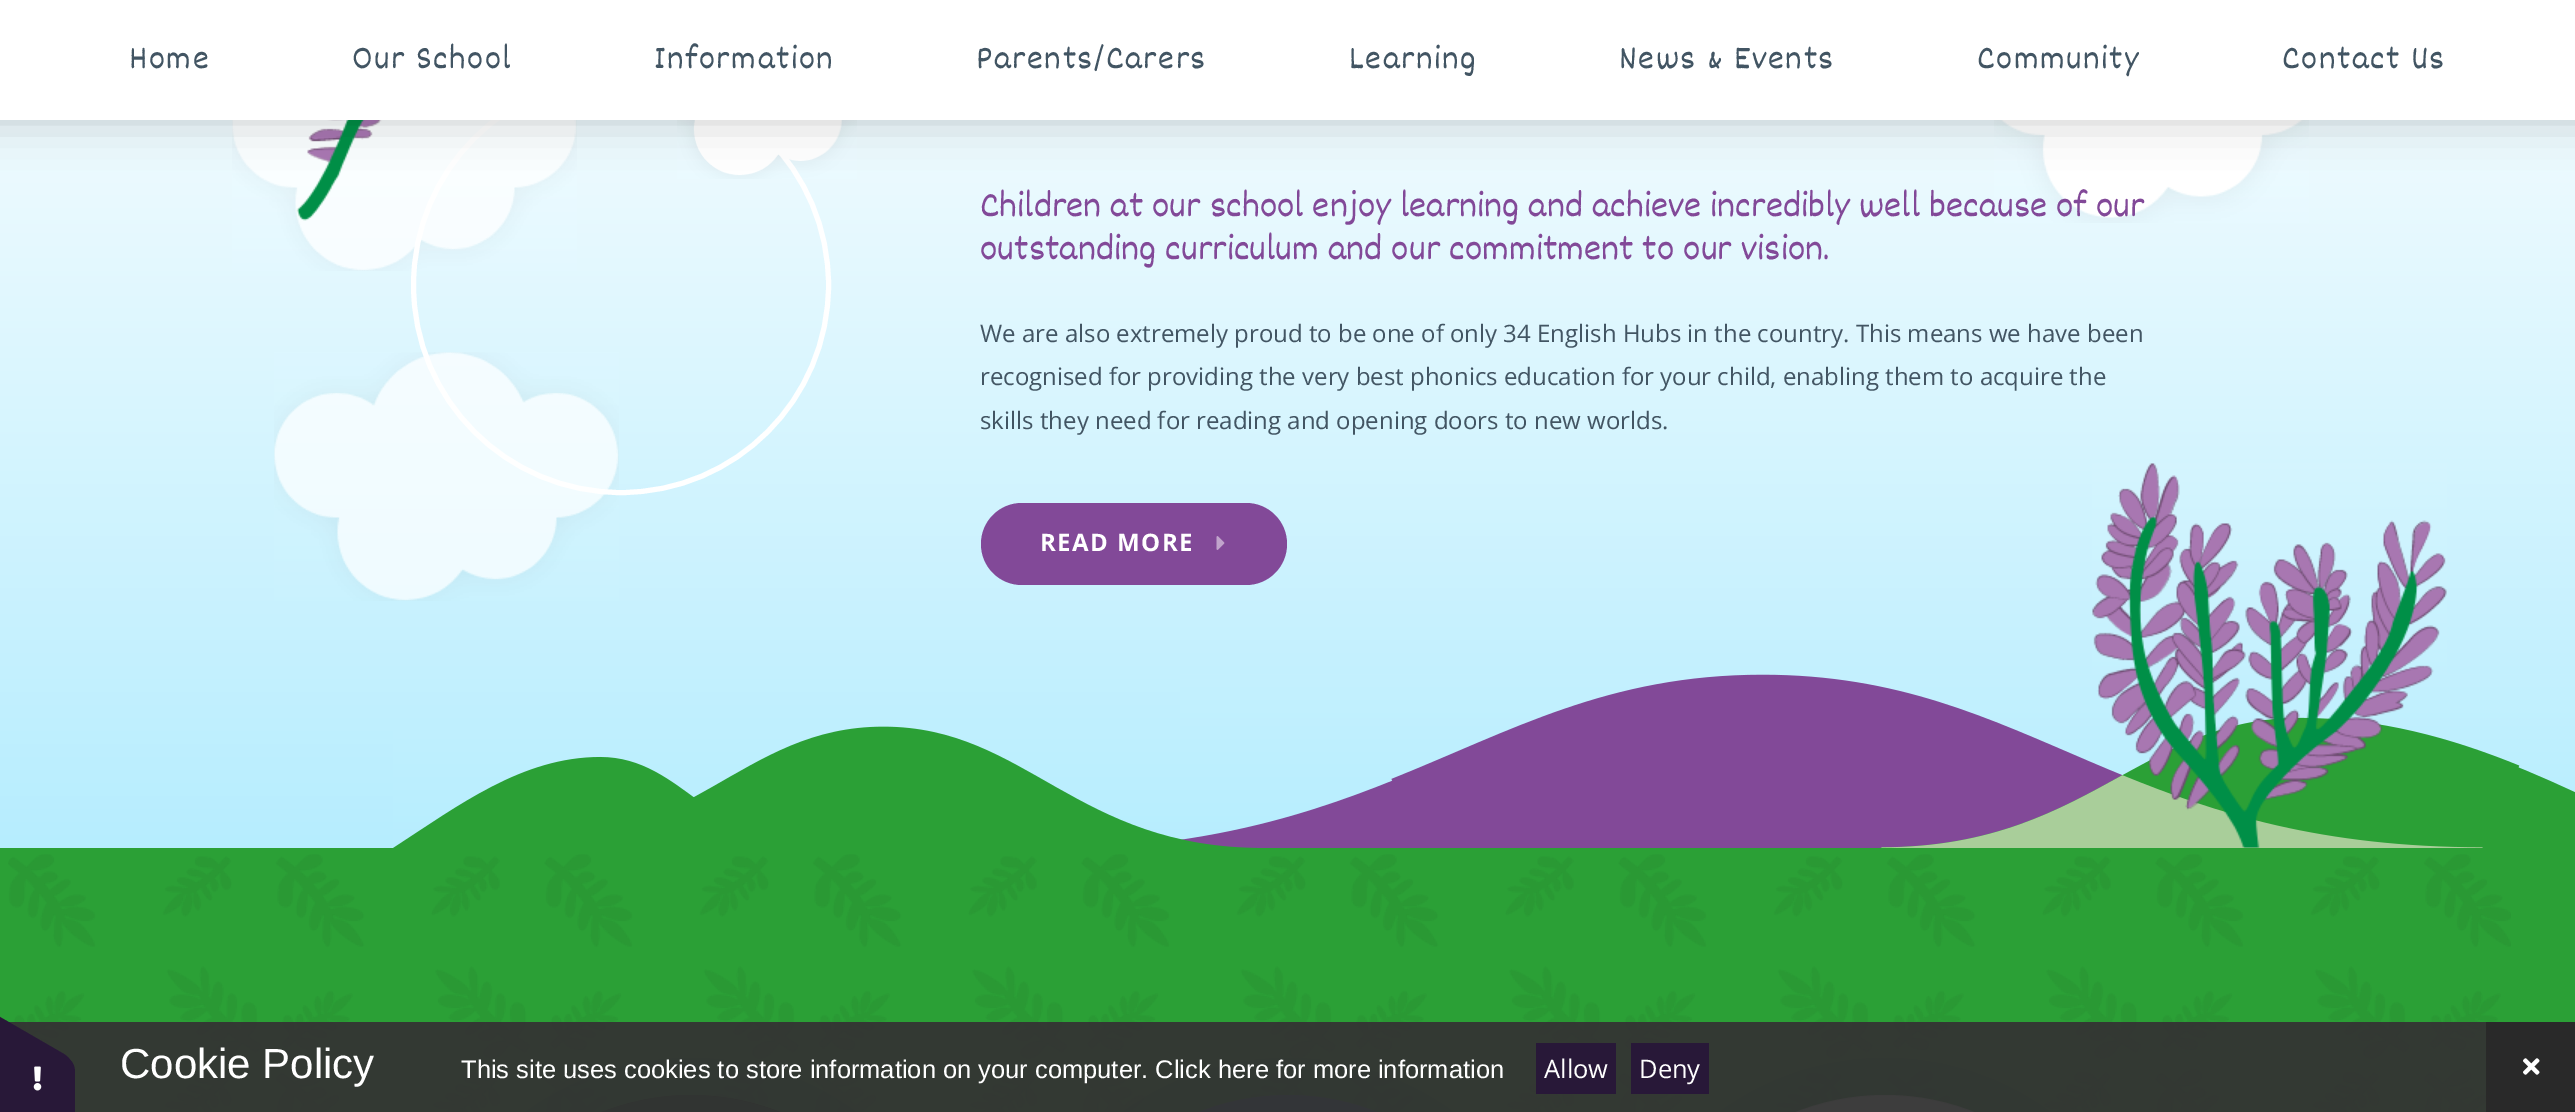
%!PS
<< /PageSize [2575 1112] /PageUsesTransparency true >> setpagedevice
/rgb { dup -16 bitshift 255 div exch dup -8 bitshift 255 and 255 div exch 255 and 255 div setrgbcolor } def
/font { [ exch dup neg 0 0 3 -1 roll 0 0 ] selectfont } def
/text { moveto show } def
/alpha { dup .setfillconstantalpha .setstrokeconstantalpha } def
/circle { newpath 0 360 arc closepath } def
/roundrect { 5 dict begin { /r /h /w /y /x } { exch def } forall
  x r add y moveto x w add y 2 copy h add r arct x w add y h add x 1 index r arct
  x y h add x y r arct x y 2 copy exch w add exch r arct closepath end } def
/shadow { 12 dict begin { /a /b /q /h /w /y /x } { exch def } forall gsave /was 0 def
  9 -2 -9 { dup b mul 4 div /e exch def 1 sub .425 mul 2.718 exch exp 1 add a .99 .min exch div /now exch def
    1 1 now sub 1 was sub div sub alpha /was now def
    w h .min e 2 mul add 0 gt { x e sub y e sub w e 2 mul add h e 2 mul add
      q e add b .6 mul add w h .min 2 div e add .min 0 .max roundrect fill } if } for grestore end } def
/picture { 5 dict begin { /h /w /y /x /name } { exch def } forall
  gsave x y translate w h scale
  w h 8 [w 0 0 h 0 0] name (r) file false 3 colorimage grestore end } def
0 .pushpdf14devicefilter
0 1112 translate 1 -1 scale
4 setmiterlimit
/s1 { /Dekko-Regular 39 font 16#824998 rgb } def
/s2 { /OpenSans-Regular 24 font 16#425563 rgb } def
/s3 { /LiberationSans-Regular 42 font 16#FFFFFF rgb } def
/s4 { /LiberationSans-Regular 25.5 font 16#FFFFFF rgb } def
/s5 { /OpenSans-Regular 25.5 font 16#FFFFFF rgb } def
16#FFFFFF rgb
0 0 2575 1112 rectfill
gsave 0 120 moveto 2575 120 lineto 2575 848 lineto 0 848 lineto closepath clip newpath
<< /ShadingType 2 /ColorSpace /DeviceRGB /Coords [1288 -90 1288 848] /Extend [true true] /Function << /FunctionType 2 /Domain [0 1] /C0 [1 1 1] /C1 [0.714 0.929 0.996] /N 1 >> >> shfill grestore
(pic1.raw) 232 120 345 151 picture
(pic3.raw) 677 120 180 59 picture
(pic4.raw) 274 352 345 249 picture
5 setlinewidth
621 285 207.5 circle stroke
(pic2.raw) 296 120 86 101 picture
(pic5.raw) 1994 120 315 103 picture
16#000000 rgb
-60 0 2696 120 60 22.5 0.2 shadow
16#FFFFFF rgb
0 0 2575 120 rectfill
/Dekko-Regular 36 font
16#425563 rgb
129 68 moveto 1.5 0 (Home) ashow
352 68 moveto 1.5 0 (Our School) ashow
654 68 moveto 1.5 0 (Information) ashow
976 68 moveto 1.5 0 (Parents/Carers) ashow
1349 68 moveto 1.5 0 (Learning) ashow
1619 68 moveto 1.5 0 (News & Events) ashow
1977 68 moveto 1.5 0 (Community) ashow
2282 68 moveto 1.5 0 (Contact Us) ashow
s1
(Children at our school enjoy learning and achieve incredibly well because of our) 980 216 text
(outstanding curriculum and our commitment to our vision.) 980 259 text
s2
(We are also extremely proud to be one of only 34 English Hubs in the country. This means we have been) 980 342 text
(recognised for providing the very best phonics education for your child, enabling them to acquire the) 980 385 text
(skills they need for reading and opening doors to new worlds.) 980 429 text
16#824998 rgb
981 503 306 82 41 roundrect fill
/OpenSans-Bold 24 font
16#FFFFFF rgb
1040 551 moveto 1.5 0 (READ MORE) ashow
(pic6.raw) 1216 536 9 14 picture
(pic9.raw) 1180 674 1395 174 picture
(pic7.raw) 2092 463 355 385 picture
(pic8.raw) 393 726 864 122 picture
16#2BA036 rgb
0 848 2575 264 rectfill
(pic10.raw) 8 854 2503 258 picture
0.1 alpha
16#000000 rgb
38 setlinewidth
430 1077 522 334 260.5 roundrect stroke
1 alpha
449 1095 484 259 242 roundrect fill
(pic11.raw) 603 1095 176 17 picture
0.1 alpha
1027 1077 522 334 260.5 roundrect stroke
1 alpha
16#3B5998 rgb
1046 1095 484 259 242 roundrect fill
16#FFFFFF rgb
1643 1095 484 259 242 roundrect fill
0.1 alpha
16#000000 rgb
1624 1077 522 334 260.5 roundrect stroke
0.95 alpha
16#333333 rgb
8 1022 2478 90 rectfill
1 alpha
16#281838 rgb
75 1072 moveto 75 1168 lineto 75 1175 72 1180 69 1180 curveto -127 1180 lineto -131 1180 -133 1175 -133 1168 curveto -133 1072 lineto -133 1066 -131 1060 -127 1060 curveto 69 1060 lineto 72 1060 75 1066 75 1072 curveto closepath fill
-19 1006 moveto 64 1054 lineto 70 1058 73 1063 72 1066 curveto -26 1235 lineto -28 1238 -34 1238 -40 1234 curveto -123 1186 lineto -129 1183 -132 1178 -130 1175 curveto -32 1006 lineto -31 1003 -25 1003 -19 1006 curveto closepath fill
(pic12.raw) 33 1066 9 25 picture
s3
(Cookie Policy) 120 1078 text
s4
(This site uses cookies to store information on your computer. Click here for more information) 461 1078 text
16#281838 rgb
1536 1043 80 51 rectfill
s5
(Allow) 1544 1078 text
16#281838 rgb
1631 1043 78 51 rectfill
s5
(Deny) 1639 1078 text
16#292929 rgb
2486 1022 89 90 rectfill
(pic13.raw) 2523 1058 17 17 picture
.poppdf14devicefilter showpage
